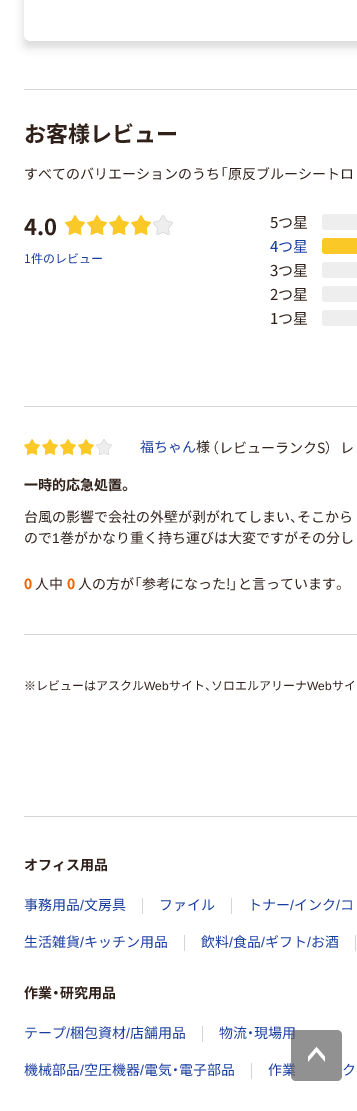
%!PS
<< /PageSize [357 1111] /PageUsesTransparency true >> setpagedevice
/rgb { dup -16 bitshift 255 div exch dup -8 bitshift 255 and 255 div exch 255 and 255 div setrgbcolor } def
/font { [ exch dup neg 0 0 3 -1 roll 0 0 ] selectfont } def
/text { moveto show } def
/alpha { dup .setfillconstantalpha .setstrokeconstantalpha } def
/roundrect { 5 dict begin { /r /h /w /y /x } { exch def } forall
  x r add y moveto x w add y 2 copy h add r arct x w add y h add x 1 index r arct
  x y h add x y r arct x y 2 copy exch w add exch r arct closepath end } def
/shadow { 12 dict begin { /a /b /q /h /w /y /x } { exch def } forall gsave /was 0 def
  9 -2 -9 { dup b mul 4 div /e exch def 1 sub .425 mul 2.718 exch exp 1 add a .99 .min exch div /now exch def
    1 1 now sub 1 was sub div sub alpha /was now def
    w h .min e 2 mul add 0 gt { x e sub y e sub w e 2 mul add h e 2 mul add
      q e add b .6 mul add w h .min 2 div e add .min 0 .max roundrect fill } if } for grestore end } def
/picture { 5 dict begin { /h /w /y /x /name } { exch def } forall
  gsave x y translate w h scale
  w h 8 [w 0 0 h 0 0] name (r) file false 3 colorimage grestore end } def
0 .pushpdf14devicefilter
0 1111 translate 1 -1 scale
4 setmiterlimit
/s1 { /NotoSansCJKJP-Bold 22 font 16#30201A rgb } def
/s2 { /NotoSansJP-Regular 14 font 16#30201A rgb } def
/s3 { /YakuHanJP-Light 14 font 16#30201A rgb } def
/s4 { /NotoSansJP-Regular 12 font 16#183D9F rgb } def
/s5 { /NotoSansJP-Regular 15 font 16#30201A rgb } def
/s6 { /NotoSansJP-Regular 15 font 16#183D9F rgb } def
/s7 { /NotoSansJP-Regular 14 font 16#183D9F rgb } def
/s8 { /NotoSansCJKJP-Bold 14 font 16#30201A rgb } def
/s9 { /YakuHanJP-Bold 14 font 16#30201A rgb } def
/s10 { /LiberationSans-Regular 14 font 16#30201A rgb } def
/s11 { /NotoSansCJKJP-Bold 14 font 16#F06100 rgb } def
/s12 { /NotoSansJP-Regular 12 font 16#30201A rgb } def
/s13 { /LiberationSans-Regular 12 font 16#30201A rgb } def
/s14 { /YakuHanJP-Light 12 font 16#30201A rgb } def
/s15 { /LiberationSans-Regular 14 font 16#183D9F rgb } def
/s16 { /YakuHanJP-Light 14 font 16#183D9F rgb } def
16#FFFFFF rgb
0 0 357 1111 rectfill
gsave
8 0 moveto 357 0 lineto 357 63 lineto 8 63 lineto closepath 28 -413 moveto 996 -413 lineto 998 -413 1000 -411 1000 -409 curveto 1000 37 lineto 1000 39 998 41 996 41 curveto 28 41 lineto 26 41 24 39 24 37 curveto 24 -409 lineto 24 -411 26 -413 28 -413 curveto closepath eoclip newpath
16#000000 rgb
24 -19 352 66 4 5 0.15 shadow
grestore
16#D5D5D5 rgb
24 89 333 1 rectfill
s1
(お客様レビュー) 24 142 text
s2
(すべてのバリエーションのうち) 24 179 text
s3
(「) 220 179 text
s2
(原反ブルーシートロ) 228 179 text
s1
(4.0) 24 235 text
(pic1.raw) 65 215 20 20 picture
(pic1.raw) 87 215 20 20 picture
(pic1.raw) 109 215 20 20 picture
(pic1.raw) 131 215 20 20 picture
(pic2.raw) 153 215 20 20 picture
s4
(1件のレビュー) 24 263 text
s5
(5つ星) 270 228 text
16#EEEEEE rgb
322 214 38 16 3 roundrect fill
s6
(4つ星) 270 252 text
16#FAC928 rgb
325 238 moveto 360 238 lineto 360 254 lineto 325 254 lineto 323.5 254 322 252.5 322 251 curveto 322 241 lineto 322 239.5 323.5 238 325 238 curveto closepath fill
s5
(3つ星) 270 276 text
16#EEEEEE rgb
322 262 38 16 3 roundrect fill
s5
(2つ星) 270 300 text
16#EEEEEE rgb
322 286 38 16 3 roundrect fill
s5
(1つ星) 270 324 text
16#EEEEEE rgb
322 310 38 16 3 roundrect fill
16#D5D5D5 rgb
24 406 333 1 rectfill
24 634 333 1 rectfill
(pic3.raw) 24 439 16 16 picture
(pic3.raw) 42 439 16 16 picture
(pic3.raw) 60 439 16 16 picture
(pic3.raw) 78 439 16 16 picture
(pic4.raw) 96 439 16 16 picture
s7
(福ちゃん) 140 452 text
s2
(様) 196 452 text
s3
(（) 212 453 text
s2
(レビューランクS) 219 453 text
s3
(）) 325 453 text
s2
(レ) 340 453 text
s8
(一時的応急処置) 24 490 text
s9
(。) 122 490 text
s2
(台風の影響で会社の外壁が剥がれてしまい) 24 522 text
s3
(、) 290 522 text
s2
(そこから) 297 522 text
(ので) 24 543 text
s10
(1) 52 543 text
s2
(巻がかなり重く持ち運びは大変ですがその分し) 60 543 text
s11
(0) 24 589 text
s2
(人中) 35 589 text
s11
(0) 67 589 text
s2
(人の方が) 78 589 text
s3
(「) 134 589 text
s2
(参考になった!) 142 589 text
s3
(」) 230 589 text
s2
(と言っています) 238 589 text
s3
(。) 336 589 text
s12
(※レビューはアスクル) 24 690 text
s13
(Web) 144 690 text
s12
(サイト) 169 690 text
s14
(、) 205 690 text
s12
(ソロエルアリーナ) 211 690 text
s13
(Web) 307 690 text
s12
(サイ) 332 690 text
16#D5D5D5 rgb
24 816 333 1 rectfill
s8
(オフィス用品) 24 870 text
s7
(事務用品) 24 910 text
s15
(/) 80 910 text
s7
(文房具) 84 910 text
16#D5D5D5 rgb
142 898 1 16 rectfill
s7
(ファイル) 159 910 text
16#D5D5D5 rgb
231 898 1 16 rectfill
s7
(トナー) 248 910 text
s15
(/) 290 910 text
s7
(インク) 294 910 text
s15
(/) 336 910 text
s7
(コ) 340 910 text
(生活雑貨) 24 947 text
s15
(/) 80 947 text
s7
(キッチン用品) 84 947 text
16#D5D5D5 rgb
184 935 1 16 rectfill
s7
(飲料) 201 947 text
s15
(/) 229 947 text
s7
(食品) 233 947 text
s15
(/) 261 947 text
s7
(ギフト) 265 947 text
s15
(/) 307 947 text
s7
(お酒) 311 947 text
16#D5D5D5 rgb
355 935 1 16 rectfill
s8
(作業) 24 998 text
s9
(・) 52 998 text
s8
(研究用品) 60 998 text
s7
(テープ) 24 1038 text
s15
(/) 66 1038 text
s7
(梱包資材) 70 1038 text
s15
(/) 126 1038 text
s7
(店舗用品) 130 1038 text
16#D5D5D5 rgb
202 1026 1 16 rectfill
s7
(物流) 219 1038 text
s16
(・) 247 1038 text
s7
(現場用) 254 1038 text
(機械部品) 24 1075 text
s15
(/) 80 1075 text
s7
(空圧機器) 84 1075 text
s15
(/) 140 1075 text
s7
(電気) 144 1075 text
s16
(・) 172 1075 text
s7
(電子部品) 179 1075 text
16#D5D5D5 rgb
251 1063 1 16 rectfill
s7
(作業) 268 1075 text
(ク) 342 1075 text
0.7 alpha
16#636363 rgb
291 1030 51 51 5 roundrect fill
1 alpha
(pic5.raw) 308 1046 17 16 picture
.poppdf14devicefilter showpage
